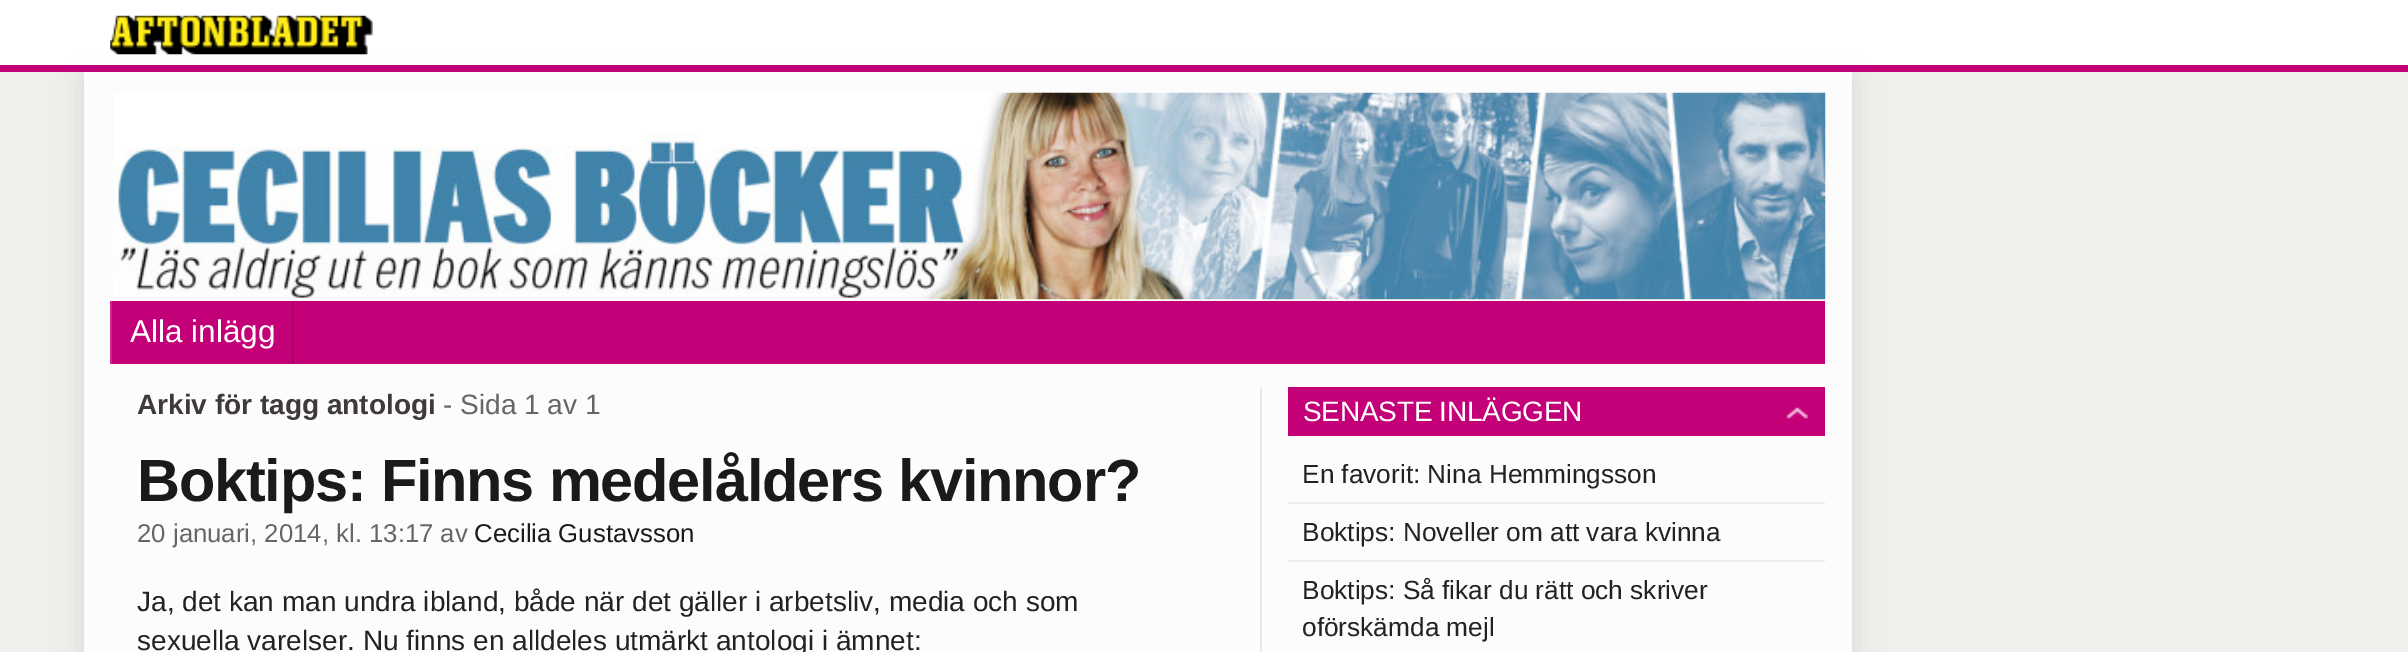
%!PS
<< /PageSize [2408 652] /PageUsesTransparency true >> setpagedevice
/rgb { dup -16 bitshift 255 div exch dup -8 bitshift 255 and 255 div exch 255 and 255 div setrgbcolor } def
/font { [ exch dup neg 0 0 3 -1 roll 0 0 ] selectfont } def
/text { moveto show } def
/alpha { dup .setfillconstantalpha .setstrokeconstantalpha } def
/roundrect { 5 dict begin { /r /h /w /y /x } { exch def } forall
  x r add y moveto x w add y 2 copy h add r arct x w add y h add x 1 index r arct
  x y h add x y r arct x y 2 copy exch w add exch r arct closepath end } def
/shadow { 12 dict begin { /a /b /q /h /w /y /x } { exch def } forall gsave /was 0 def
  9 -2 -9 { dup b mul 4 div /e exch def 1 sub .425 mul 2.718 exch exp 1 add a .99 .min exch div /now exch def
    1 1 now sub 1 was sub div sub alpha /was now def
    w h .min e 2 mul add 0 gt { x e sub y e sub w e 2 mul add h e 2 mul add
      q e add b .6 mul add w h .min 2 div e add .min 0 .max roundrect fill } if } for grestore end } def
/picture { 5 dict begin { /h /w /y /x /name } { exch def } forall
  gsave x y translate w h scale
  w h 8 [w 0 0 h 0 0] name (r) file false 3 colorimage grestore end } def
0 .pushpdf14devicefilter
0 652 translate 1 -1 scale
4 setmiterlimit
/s1 { /LiberationSans-Regular 31.5 font 16#FFFFFF rgb } def
/s2 { /LiberationSans-Bold 28 font 16#40393A rgb } def
/s3 { /LiberationSans-Regular 28 font 16#666666 rgb } def
/s4 { /LiberationSans-Regular 25.75 font 16#666666 rgb } def
/s5 { /LiberationSans-Regular 25.75 font 16#1A1A1A rgb } def
/s6 { /LiberationSans-Regular 28 font 16#222222 rgb } def
/s7 { /LiberationSans-Regular 26.25 font 16#222222 rgb } def
16#F1EFEB rgb
0 0 2408 652 rectfill
16#FFFFFF rgb
0 0 2408 65 rectfill
16#C40079 rgb
0 65 2408 7 rectfill
(pic1.raw) 110 15 263 40 picture
16#000000 rgb
84 81 1768 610 0 13 0.1 shadow
16#FCFCFC rgb
84 72 1768 580 rectfill
(pic2.raw) 114 92 1712 208 picture
16#C40079 rgb
112 301 1713 63 rectfill
16#CD268D rgb
110 301 2 63 rectfill
16#A70067 rgb
292 301 2 63 rectfill
s1
(Alla inlägg) 130 342 text
16#E9E9E9 rgb
1260 387 2 265 rectfill
s2
(Arkiv för tagg antologi) 137 414 text
s3
(- Sida 1 av 1) 443 414 text
/LiberationSans-Bold 59.5 font
16#1A1A1A rgb
137 501 moveto -1.2 0 (Boktips: Finns medelålders kvinnor?) ashow
s4
(20 januari, 2014, kl. 13:17 av) 137 542 text
s5
(Cecilia Gustavsson) 474 542 text
s6
(Ja, det kan man undra ibland, både när det gäller i arbetsliv, media och som) 137 611 text
(sexuella varelser. Nu finns en alldeles utmärkt antologi i ämnet:) 137 650 text
16#C40079 rgb
1288 387 537 49 rectfill
16#FFFFFF rgb
1303 421 moveto -0.25 0 (SENASTE INLÄGGEN) ashow
(pic3.raw) 1786 407 22 12 picture
16#EDEDED rgb
1288 502 537 2 rectfill
s7
(En favorit: Nina Hemmingsson) 1302 483 text
16#EDEDED rgb
1288 560 537 2 rectfill
s7
(Boktips: Noveller om att vara kvinna) 1302 541 text
(Boktips: Så fikar du rätt och skriver) 1302 599 text
(oförskämda mejl) 1302 636 text
.poppdf14devicefilter showpage
